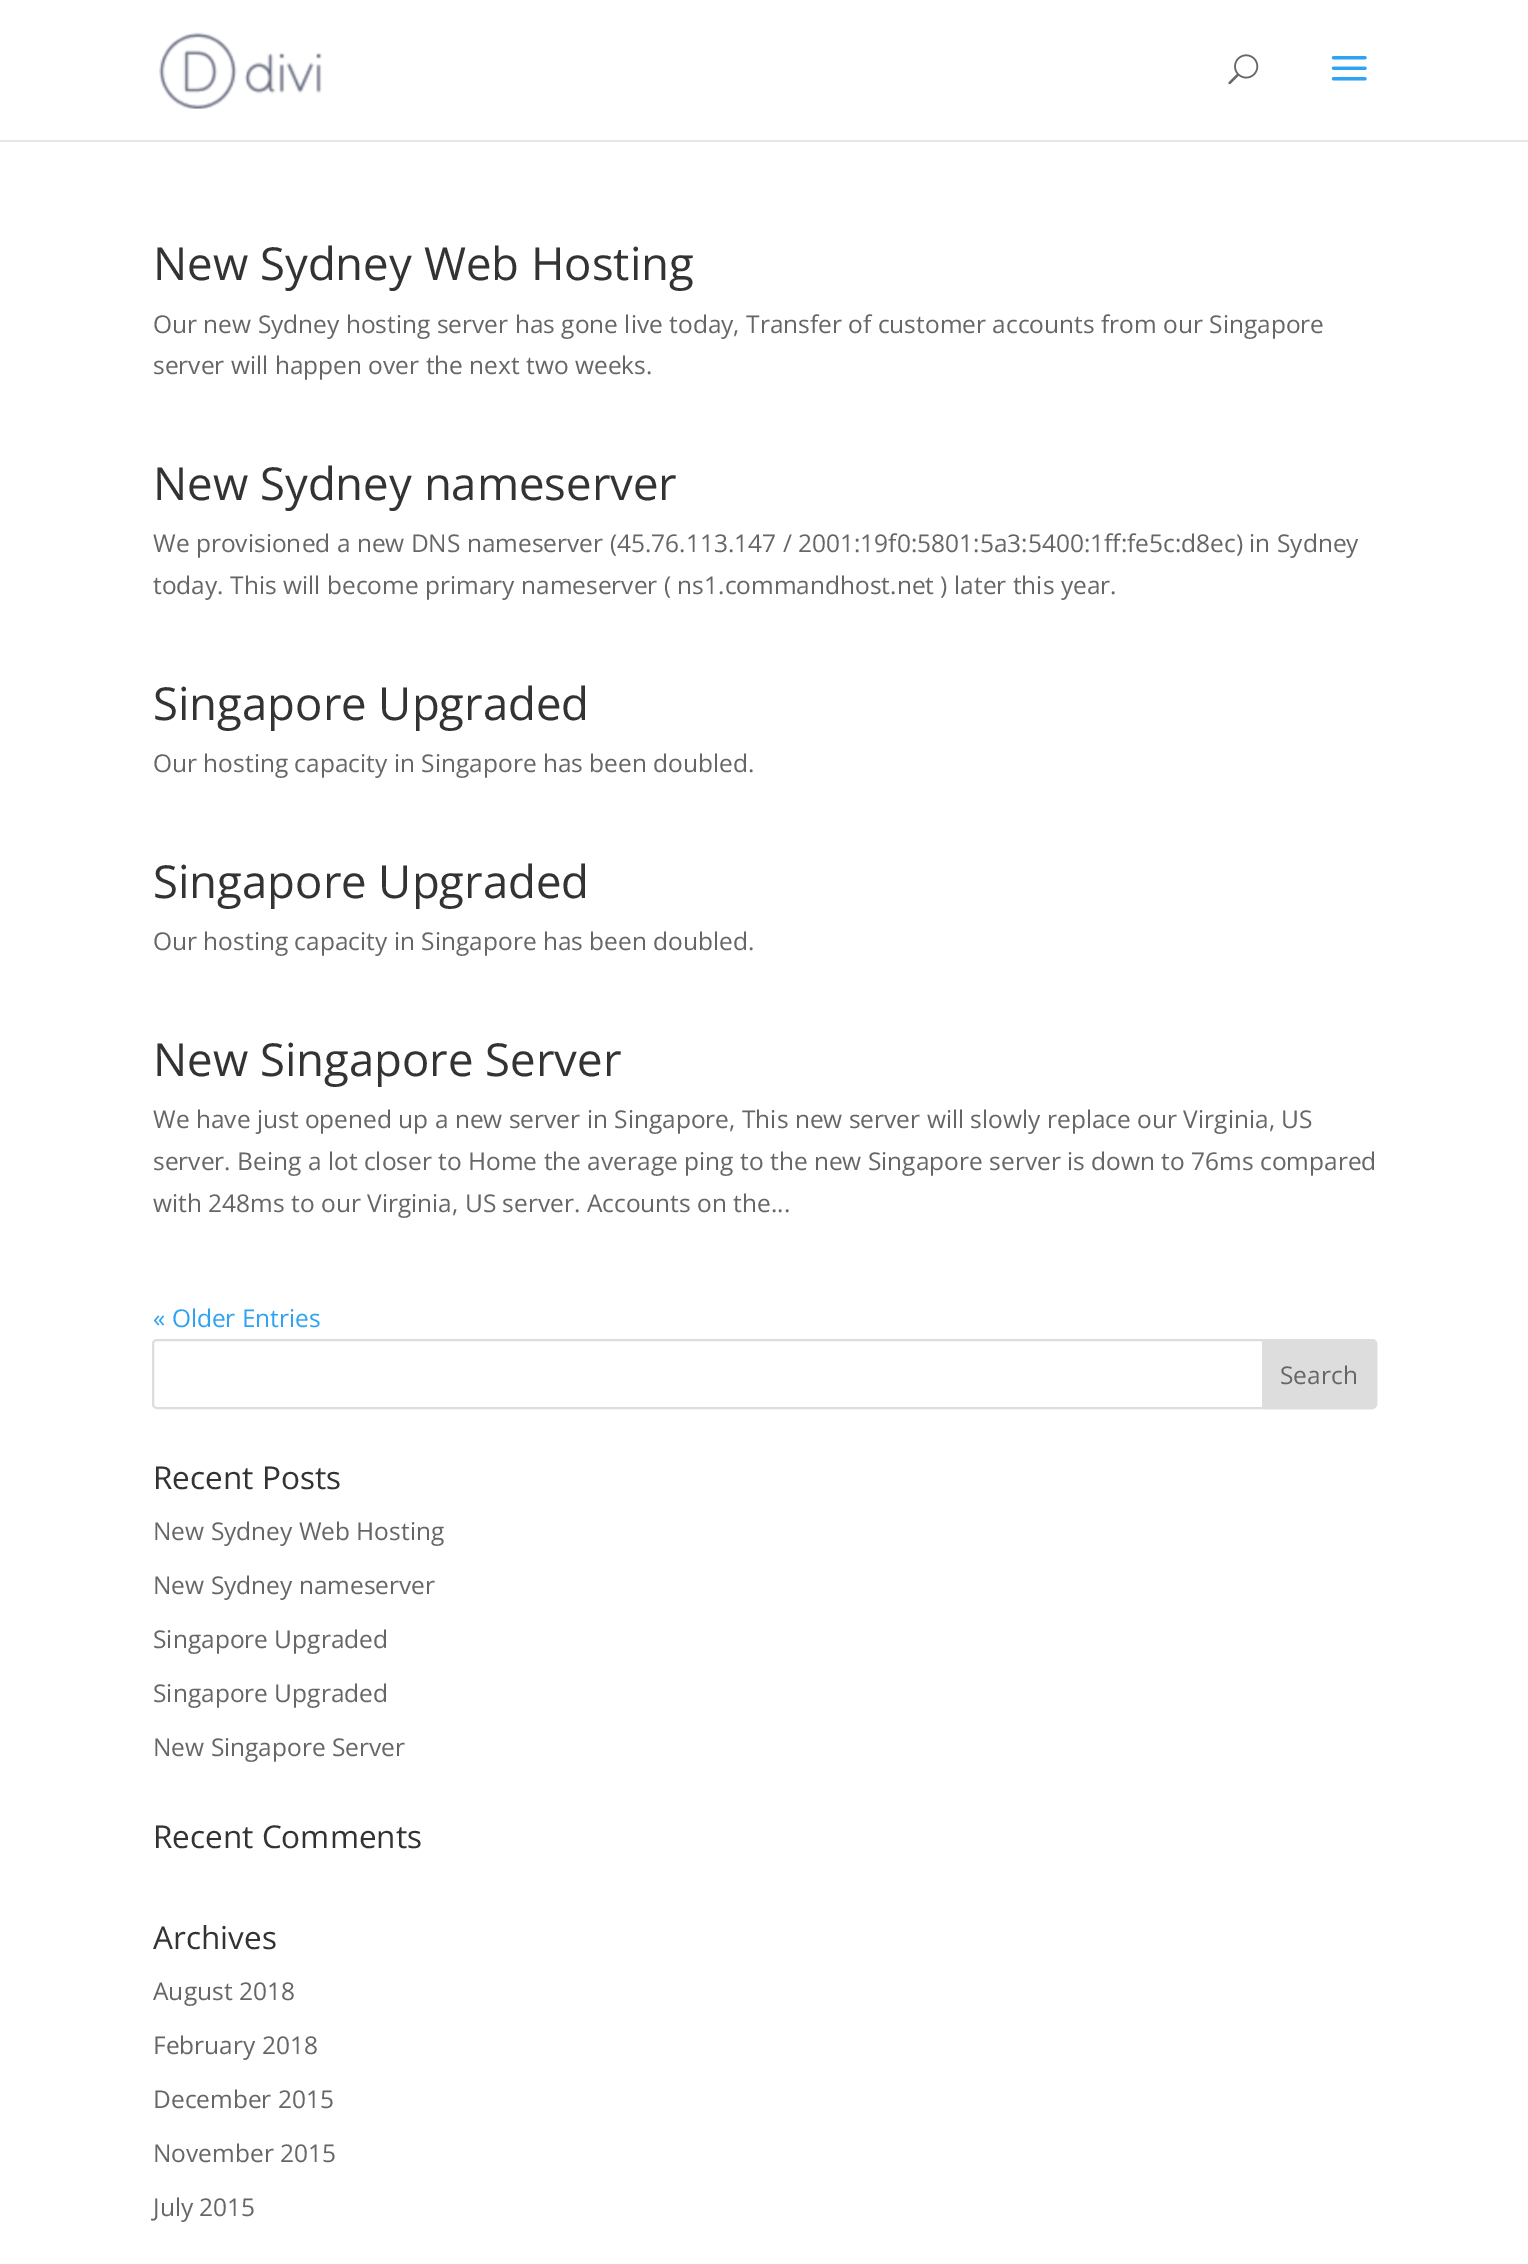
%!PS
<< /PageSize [1528 2264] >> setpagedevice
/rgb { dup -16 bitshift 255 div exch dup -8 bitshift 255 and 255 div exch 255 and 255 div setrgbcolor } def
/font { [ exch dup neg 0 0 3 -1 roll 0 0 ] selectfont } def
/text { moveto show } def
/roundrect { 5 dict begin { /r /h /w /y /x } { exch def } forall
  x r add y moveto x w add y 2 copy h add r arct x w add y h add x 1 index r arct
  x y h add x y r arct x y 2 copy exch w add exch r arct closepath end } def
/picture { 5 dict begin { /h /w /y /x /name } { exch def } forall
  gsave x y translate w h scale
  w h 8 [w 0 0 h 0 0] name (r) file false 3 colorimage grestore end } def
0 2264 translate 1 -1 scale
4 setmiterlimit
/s1 { /OpenSans-Regular 45.5 font 16#333333 rgb } def
/s2 { /OpenSans-Regular 24.5 font 16#666666 rgb } def
/s3 { /OpenSans-Regular 24.5 font 16#2EA3F2 rgb } def
/s4 { /OpenSans-Regular 31.5 font 16#333333 rgb } def
16#FFFFFF rgb
0 0 1528 2264 rectfill
16#E6E6E6 rgb
0 140 moveto 0 142 lineto 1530 142 lineto 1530 2 lineto 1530 140 lineto closepath fill
(pic1.raw) 159 32 163 77 picture
(pic2.raw) 1228 54 31 31 picture
(pic3.raw) 1331 56 36 25 picture
s1
(New Sydney Web Hosting) 153 280 text
s2
(Our new Sydney hosting server has gone live today, Transfer of customer accounts from our Singapore) 153 333 text
(server will happen over the next two weeks.) 153 374 text
s1
(New Sydney nameserver) 153 500 text
s2
(We provisioned a new DNS nameserver \(45.76.113.147 / 2001:19f0:5801:5a3:5400:1ff:fe5c:d8ec\) in Sydney) 153 552 text
(today. This will become primary nameserver \( ns1.commandhost.net \) later this year.) 153 594 text
s1
(Singapore Upgraded) 153 720 text
s2
(Our hosting capacity in Singapore has been doubled.) 153 772 text
s1
(Singapore Upgraded) 153 898 text
s2
(Our hosting capacity in Singapore has been doubled.) 153 950 text
s1
(New Singapore Server) 153 1076 text
s2
(We have just opened up a new server in Singapore, This new server will slowly replace our Virginia, US) 153 1128 text
(server. Being a lot closer to Home the average ping to the new Singapore server is down to 76ms compared) 153 1170 text
(with 248ms to our Virginia, US server. Accounts on the...) 153 1212 text
s3
(« Older Entries) 153 1327 text
16#DDDDDD rgb
2 setlinewidth
153 1340 1223 68 4 roundrect stroke
1263 1340 moveto 1372 1340 lineto 1374 1340 1376 1342 1376 1344 curveto 1376 1404 lineto 1376 1406 1374 1408 1372 1408 curveto 1263 1408 lineto closepath gsave fill grestore
stroke
s2
(Search) 1280 1384 text
s4
(Recent Posts) 153 1489 text
s2
(New Sydney Web Hosting) 153 1540 text
(New Sydney nameserver) 153 1594 text
(Singapore Upgraded) 153 1648 text
(Singapore Upgraded) 153 1702 text
(New Singapore Server) 153 1756 text
s4
(Recent Comments) 153 1848 text
(Archives) 153 1949 text
s2
(August 2018) 153 2000 text
(February 2018) 153 2054 text
(December 2015) 153 2108 text
(November 2015) 153 2162 text
(July 2015) 153 2216 text
showpage
